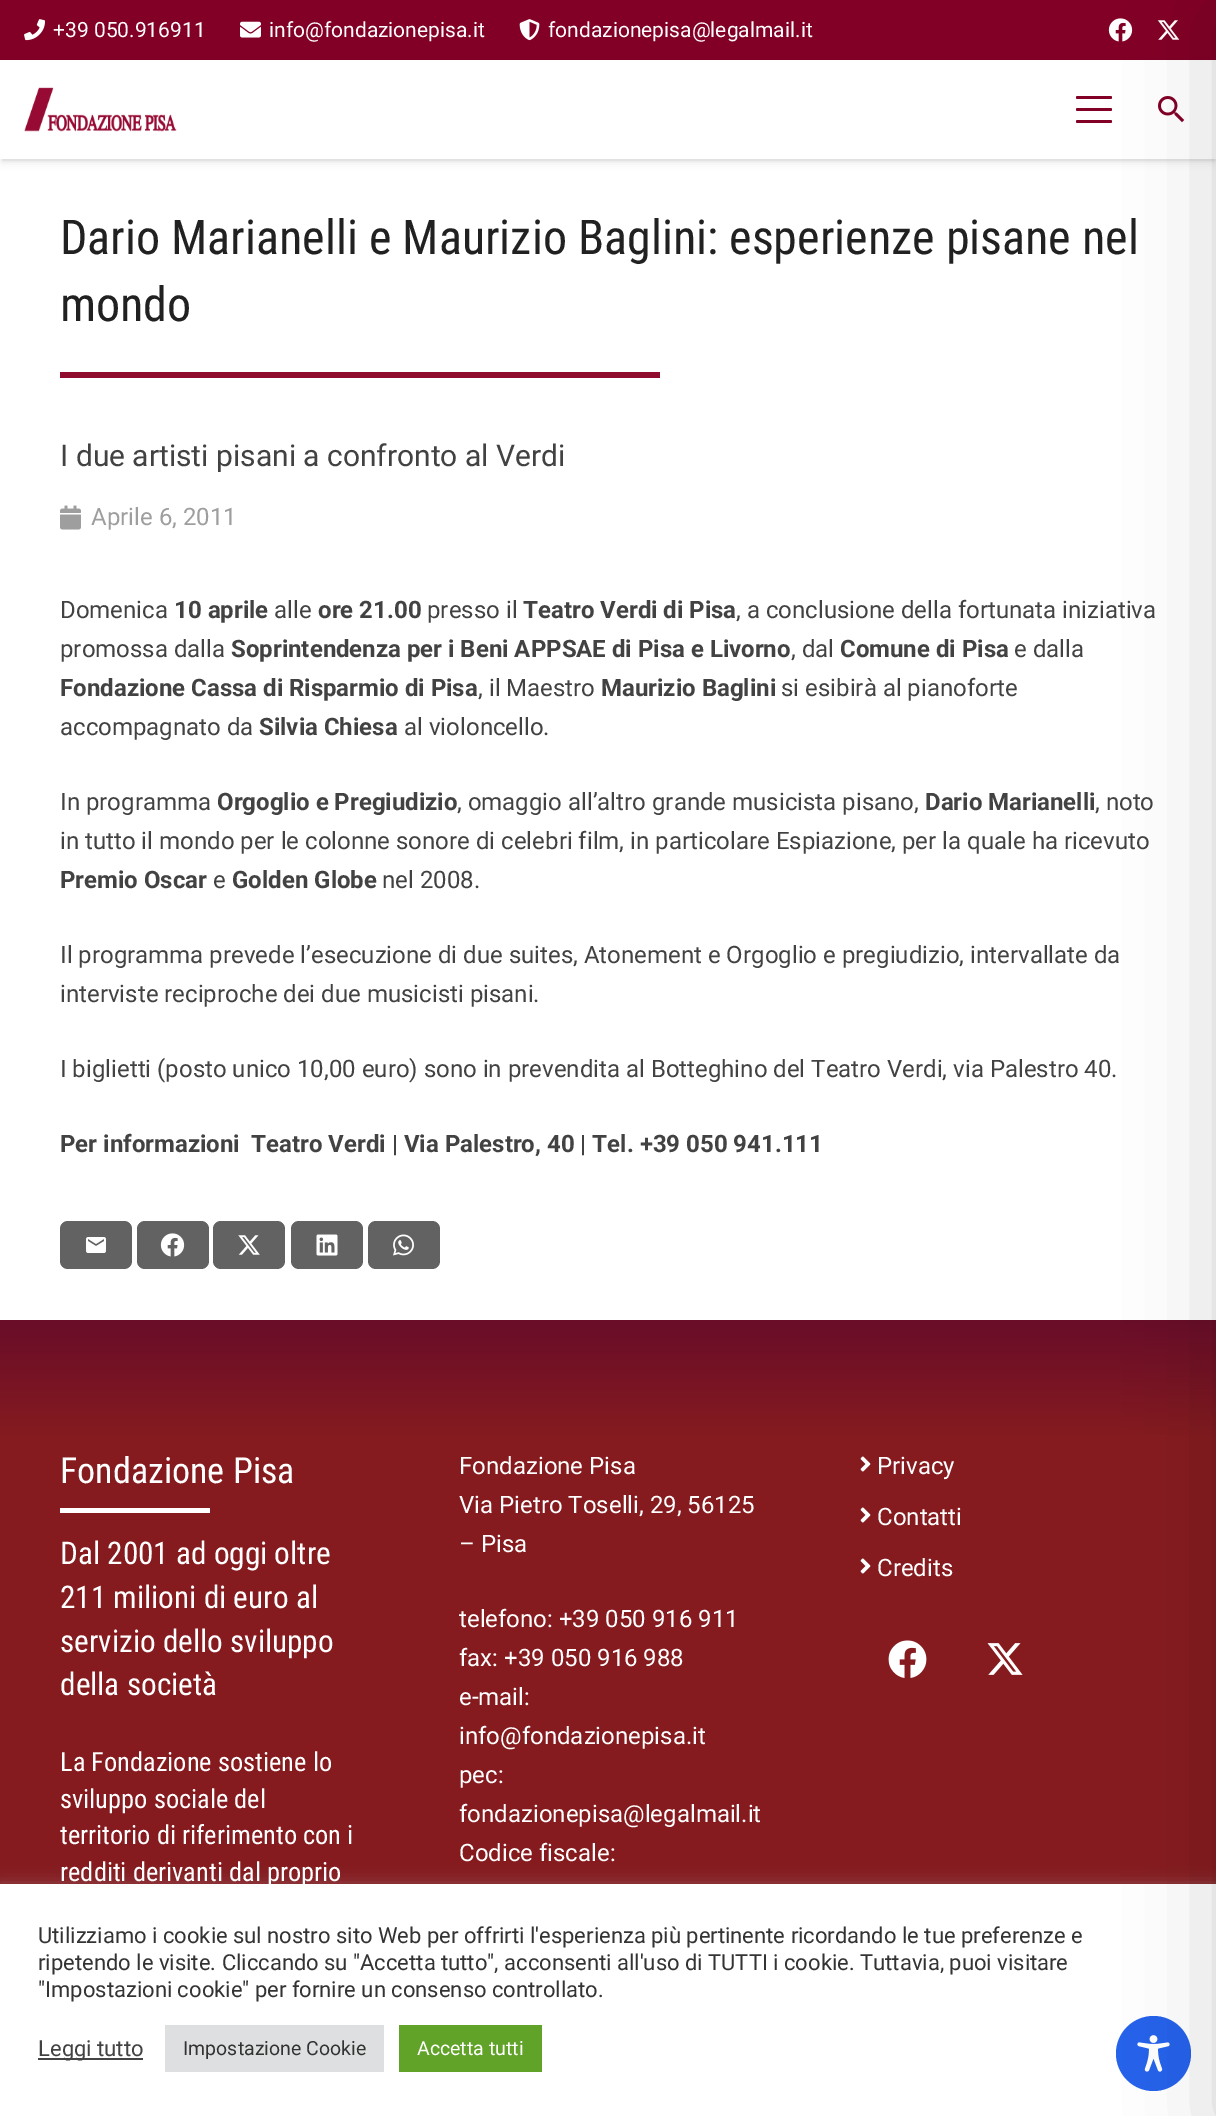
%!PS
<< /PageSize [1216 2116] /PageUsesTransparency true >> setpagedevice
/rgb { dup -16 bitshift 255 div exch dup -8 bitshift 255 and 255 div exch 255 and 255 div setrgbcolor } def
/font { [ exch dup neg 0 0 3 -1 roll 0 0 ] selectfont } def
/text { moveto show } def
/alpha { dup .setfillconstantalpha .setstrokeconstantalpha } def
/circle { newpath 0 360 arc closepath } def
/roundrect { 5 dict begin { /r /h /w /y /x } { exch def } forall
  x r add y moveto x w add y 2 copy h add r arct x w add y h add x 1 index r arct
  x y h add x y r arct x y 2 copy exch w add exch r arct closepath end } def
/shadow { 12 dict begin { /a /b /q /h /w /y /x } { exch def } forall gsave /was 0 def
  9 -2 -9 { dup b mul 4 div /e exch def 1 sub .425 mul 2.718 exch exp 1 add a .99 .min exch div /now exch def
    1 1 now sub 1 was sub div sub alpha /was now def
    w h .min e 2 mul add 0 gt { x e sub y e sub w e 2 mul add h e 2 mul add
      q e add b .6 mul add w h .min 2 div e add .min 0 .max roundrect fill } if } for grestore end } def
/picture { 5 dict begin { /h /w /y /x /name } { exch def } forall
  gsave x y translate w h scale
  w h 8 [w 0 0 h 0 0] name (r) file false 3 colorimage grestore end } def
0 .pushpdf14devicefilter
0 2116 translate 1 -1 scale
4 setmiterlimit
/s1 { /Roboto-Regular 21 font 16#FFFFFF rgb } def
/s2 { /RobotoCondensed-Regular 48 font 16#212121 rgb } def
/s3 { /Roboto-Regular 30 font 16#424242 rgb } def
/s4 { /Roboto-Regular 24 font 16#9E9E9E rgb } def
/s5 { /Roboto-Regular 24 font 16#424242 rgb } def
/s6 { /Roboto-Bold 24 font 16#424242 rgb } def
/s7 { /RobotoCondensed-Regular 36 font 16#FFFFFF rgb } def
/s8 { /RobotoCondensed-Regular 31.25 font 16#FFFFFF rgb } def
/s9 { /RobotoCondensed-Regular 26.4 font 16#FFFFFF rgb } def
/s10 { /Roboto-Regular 24 font 16#FFFFFF rgb } def
/s11 { /Roboto-Regular 22 font 16#333333 rgb } def
/s12 { /Roboto-Regular 22 font 16#424242 rgb } def
/s13 { /Roboto-Regular 19.5 font 16#333333 rgb } def
/s14 { /Roboto-Regular 19.5 font 16#FFFFFF rgb } def
16#FFFFFF rgb
0 0 1216 2116 rectfill
16#820026 rgb
0 0 1216 60 rectfill
(pic4.raw) 1108 18 25 24 picture
(pic5.raw) 1157 20 23 20 picture
16#000000 rgb
2 65 1213 96 0 1 0.05 shadow
2 66 1213 96 0 4 0.1 shadow
16#FFFFFF rgb
0 61 1216 98 rectfill
16#820026 rgb
1076 108 36 3 1.5 roundrect fill
1076 96 36 3 1.5 roundrect fill
1076 120 36 3 1.5 roundrect fill
(pic7.raw) 1158 96 27 27 picture
gsave 0 1320 moveto 1216 1320 lineto 1216 1884 lineto 0 1884 lineto closepath clip newpath
<< /ShadingType 2 /ColorSpace /DeviceRGB /Coords [608 1320 608 2055] /Extend [true true] /Function << /FunctionType 3 /Domain [0 1] /Functions [<< /FunctionType 2 /Domain [0 1] /C0 [0.412 0.051 0.161] /C1 [0.522 0.106 0.122] /N 1 >> << /FunctionType 2 /Domain [0 1] /C0 [0.522 0.106 0.122] /C1 [0.522 0.106 0.122] /N 1 >>] /Bounds [0.16] /Encode [0 1 0 1] >> >> shfill grestore
16#ACABAB rgb
0 1883 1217 232 0 7.5 0.3 shadow
16#FFFFFF rgb
0 1884 1216 232 rectfill
16#2563EB rgb
1153.5 2053.5 37.5 circle fill
(pic17.raw) 1137 2035 33 37 picture
16#000000 rgb
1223 15 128 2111 0 45 0.2 shadow
(pic1.raw) 24 19 21 22 picture
s1
(+39 050.916911) 53 37 text
(pic2.raw) 240 21 21 17 picture
(info@fondazionepisa.it) 269 37 text
(pic3.raw) 519 19 21 22 picture
(fondazionepisa@legalmail.it) 548 37 text
(pic6.raw) 24 87 153 45 picture
s2
(Dario Marianelli e Maurizio Baglini: esperienze pisane nel) 60 254 text
(mondo) 60 321 text
16#8F0C2E rgb
60 372 600 6 rectfill
s3
(I due artisti pisani a confronto al Verdi) 60 466 text
(pic8.raw) 60 505 21 25 picture
s4
(Aprile 6, 2011) 91 525 text
s5
(Domenica) 60 618 text
s6
(10 aprile) 174 618 text
s5
(alle) 274 618 text
s6
(ore 21.00) 318 618 text
s5
(presso il) 427 618 text
s6
(Teatro Verdi di Pisa) 523 618 text
s5
(, a conclusione della fortunata iniziativa) 736 618 text
(promossa dalla) 60 657 text
s6
(Soprintendenza per i Beni APPSAE di Pisa e Livorno) 231 657 text
s5
(, dal) 791 657 text
s6
(Comune di Pisa) 840 657 text
s5
(e dalla) 1014 657 text
s6
(Fondazione Cassa di Risparmio di Pisa) 60 696 text
s5
(, il Maestro) 478 696 text
s6
(Maurizio Baglini) 601 696 text
s5
(si esibirà al pianoforte) 781 696 text
(accompagnato da) 60 735 text
s6
(Silvia Chiesa) 259 735 text
s5
(al violoncello.) 404 735 text
(In programma) 60 810 text
s6
(Orgoglio e Pregiudizio) 217 810 text
s5
(, omaggio all’altro grande musicista pisano,) 457 810 text
s6
(Dario Marianelli) 925 810 text
s5
(, noto) 1095 810 text
(in tutto il mondo per le colonne sonore di celebri film, in particolare Espiazione, per la quale ha ricevuto) 60 849 text
s6
(Premio Oscar) 60 888 text
s5
(e) 213 888 text
s6
(Golden Globe) 232 888 text
s5
(nel 2008.) 382 888 text
(Il programma prevede l’esecuzione di due suites, Atonement e Orgoglio e pregiudizio, intervallate da) 60 963 text
(interviste reciproche dei due musicisti pisani.) 60 1002 text
(I biglietti \(posto unico 10,00 euro\) sono in prevendita al Botteghino del Teatro Verdi, via Palestro 40.) 60 1077 text
s6
(Per informazioni  Teatro Verdi | Via Palestro, 40 | Tel. +39 050 941.111) 60 1152 text
16#626262 rgb
60 1221 72 48 8 roundrect fill
(pic9.raw) 86 1237 20 16 picture
137 1221 72 48 8 roundrect fill
(pic10.raw) 160 1233 25 24 picture
213 1221 72 48 8 roundrect fill
(pic11.raw) 238 1235 22 20 picture
291 1221 72 48 8 roundrect fill
(pic12.raw) 316 1234 22 22 picture
368 1221 72 48 8 roundrect fill
(pic13.raw) 393 1234 21 22 picture
s7
(Fondazione Pisa) 60 1483 text
60 1508 150 5 rectfill
s8
(Dal 2001 ad oggi oltre) 60 1564 text
(211 milioni di euro al) 60 1608 text
(servizio dello sviluppo) 60 1652 text
(della società) 60 1695 text
s9
(La Fondazione sostiene lo) 60 1771 text
(sviluppo sociale del) 60 1808 text
(territorio di riferimento con i) 60 1844 text
(redditi derivanti dal proprio) 60 1881 text
s10
(Fondazione Pisa) 459 1474 text
(Via Pietro Toselli, 29, 56125) 459 1513 text
(– Pisa) 459 1552 text
(telefono: +39 050 916 911) 459 1627 text
(fax: +39 050 916 988) 459 1666 text
(e-mail:) 459 1705 text
(info@fondazionepisa.it) 459 1744 text
(pec:) 459 1783 text
(fondazionepisa@legalmail.it) 459 1822 text
(Codice fiscale:) 459 1861 text
(pic14.raw) 860 1456 11 16 picture
(Privacy) 877 1474 text
(pic14.raw) 860 1507 11 16 picture
(Contatti) 877 1525 text
(pic14.raw) 860 1558 11 16 picture
(Credits) 877 1576 text
(pic15.raw) 888 1640 39 38 picture
(pic16.raw) 987 1643 36 32 picture
s11
(Utilizziamo i cookie sul nostro sito Web per offrirti l'esperienza più pertinente ricordando le tue preferenze e) 38 1943 text
(ripetendo le visite. Cliccando su "Accetta tutto", acconsenti all'uso di TUTTI i cookie. Tuttavia, puoi visitare) 38 1970 text
("Impostazioni cookie" per fornire un consenso controllato.) 38 1997 text
16#444444 rgb
38 2058 105 2 rectfill
s12
(Leggi tutto) 38 2056 text
16#DEDFE0 rgb
165 2025 219 47 rectfill
s13
(Impostazione Cookie) 183 2055 text
16#61A229 rgb
399 2025 143 47 rectfill
s14
(Accetta tutti) 417 2055 text
.poppdf14devicefilter showpage
